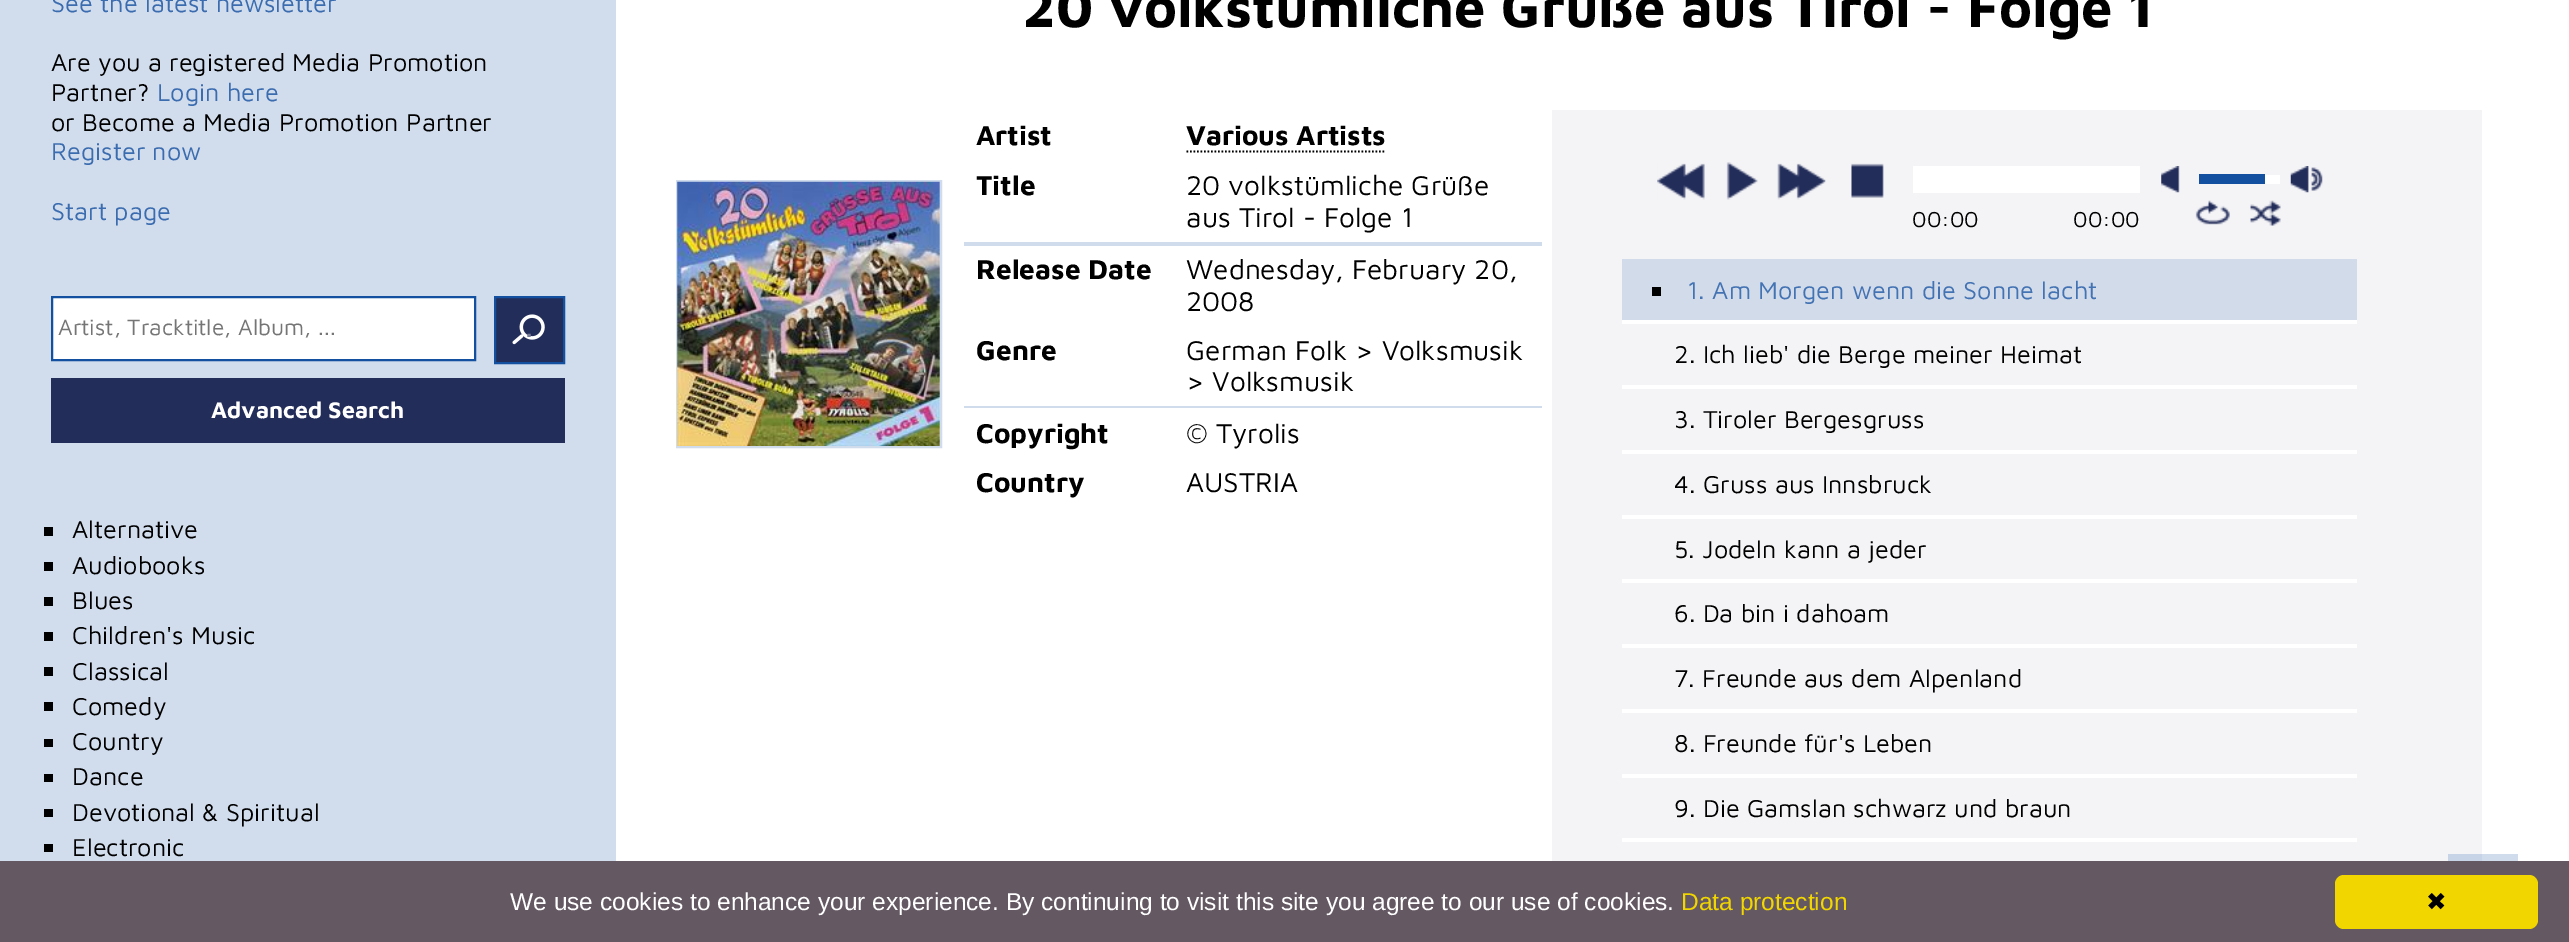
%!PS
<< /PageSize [2569 942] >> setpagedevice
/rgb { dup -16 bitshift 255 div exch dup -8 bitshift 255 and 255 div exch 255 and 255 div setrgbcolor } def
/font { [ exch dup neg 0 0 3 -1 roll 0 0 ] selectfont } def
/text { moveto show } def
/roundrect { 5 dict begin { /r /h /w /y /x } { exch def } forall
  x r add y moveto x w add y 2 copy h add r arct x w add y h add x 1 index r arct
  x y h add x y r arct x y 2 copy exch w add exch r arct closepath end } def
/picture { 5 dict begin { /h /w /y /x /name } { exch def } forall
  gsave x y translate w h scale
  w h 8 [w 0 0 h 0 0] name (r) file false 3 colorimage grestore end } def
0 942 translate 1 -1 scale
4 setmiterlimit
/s1 { /MavenPro-Regular 25.25 font 16#3A6CAF rgb } def
/s2 { /MavenPro-Regular 25.25 font 16#000000 rgb } def
/s3 { /MavenPro-Regular 22.75 font 16#757575 rgb } def
/s4 { /MavenPro-Bold 23.25 font 16#777D99 rgb } def
/s5 { /MavenPro-Bold 23.25 font 16#FFFFFF rgb } def
/s6 { /MavenPro-Bold 56 font 16#000000 rgb } def
/s7 { /MavenPro-Bold 28 font 16#000000 rgb } def
/s8 { /MavenPro-Regular 28 font 16#000000 rgb } def
/s9 { /MavenPro-Regular 22.5 font 16#000000 rgb } def
/s10 { /MavenPro-Regular 25.25 font 16#4373B3 rgb } def
/s11 { /LiberationSans-Regular 24.5 font 16#FFFFFF rgb } def
/s12 { /LiberationSans-Regular 24.5 font 16#F1D600 rgb } def
/s13 { /DejaVuSans-Regular 24.5 font 16#000000 rgb } def
16#FFFFFF rgb
0 0 2569 942 rectfill
16#D0DCEC rgb
2482 854 36 7 rectfill
16#D1DDED rgb
0 0 616 861 rectfill
s1
(See the latest newsletter) 51 12 text
s2
(Are you a registered Media Promotion) 51 71 text
(Partner?) 51 101 text
s1
(Login here) 157 101 text
s2
(or Become a Media Promotion Partner) 51 131 text
s1
(Register now) 51 160 text
(Start page) 51 220 text
16#FFFFFF rgb
52 297 moveto 475 297 lineto 475 360 lineto 52 360 lineto closepath gsave fill grestore
16#1450A0 rgb
2 setlinewidth
stroke
s3
(Artist, Tracktitle, Album, ...) 58 335 text
16#232D5A rgb
496 298 67 64 rectfill
(pic1.raw) 512 314 33 31 picture
16#1450A0 rgb
495 297 69 66 rectstroke
s4
(.) 526 337 text
16#232D5A rgb
51 378 514 65 rectfill
s5
(Advanced Search) 211 418 text
16#000000 rgb
44 527 9 9 rectfill
s2
(Alternative) 72 538 text
44 562 9 9 rectfill
(Audiobooks) 72 574 text
44 597 9 9 rectfill
(Blues) 72 609 text
44 632 9 9 rectfill
(Children's Music) 72 644 text
44 667 9 9 rectfill
(Classical) 72 680 text
44 702 9 9 rectfill
(Comedy) 72 715 text
44 739 9 8 rectfill
(Country) 72 750 text
44 774 9 8 rectfill
(Dance) 72 785 text
44 809 9 8 rectfill
(Devotional & Spiritual) 72 821 text
44 844 9 8 rectfill
(Electronic) 72 856 text
s6
(20 volkstümliche Grüße aus Tirol - Folge 1) 1022 27 text
16#D0DCEC rgb
677 181 264 266 rectstroke
(pic2.raw) 677 181 263 265 picture
s7
(Artist) 976 145 text
1.8 setlinewidth
[1.75 1.75] 0 setdash
1186.5 151.5 moveto 1386 151.5 lineto stroke
(Various Artists) 1186 145 text
(Title) 976 195 text
s8
(20 volkstümliche Grüße) 1186 195 text
(aus Tirol - Folge 1) 1186 227 text
16#D0DCEC rgb
964 242 578 4 rectfill
s7
(Release Date) 976 279 text
s8
(Wednesday, February 20,) 1186 279 text
(2008) 1186 311 text
s7
(Genre) 976 360 text
s8
(German Folk > Volksmusik) 1186 360 text
(> Volksmusik) 1186 391 text
16#D0DCEC rgb
964 406 578 2 rectfill
s7
(Copyright) 976 443 text
s8
(© Tyrolis) 1186 443 text
s7
(Country) 976 492 text
s8
(AUSTRIA) 1186 492 text
16#F4F4F7 rgb
1552 110 930 751 rectfill
16#C7D3E6 rgb
2448 854 34 7 rectfill
(pic3.raw) 1657 163 48 37 picture
(pic4.raw) 1726 162 32 38 picture
(pic5.raw) 1777 163 49 37 picture
(pic6.raw) 1851 163 33 35 picture
(pic7.raw) 2161 166 19 27 picture
(pic8.raw) 2290 166 33 27 picture
16#FFFFFF rgb
1913 166 227 27 rectfill
2265 175 15 9 rectfill
16#1450A0 rgb
2199 174 66 10 rectfill
s9
(00:00) 1912 227 text
(00:00) 2073 227 text
(pic9.raw) 2195 200 35 25 picture
(pic10.raw) 2250 200 31 26 picture
16#D2DBEA rgb
1622 259 735 61 rectfill
16#FFFFFF rgb
1622 320 735 4 rectfill
16#000000 rgb
1652 287 9 9 rectfill
s10
(1. Am Morgen wenn die Sonne lacht) 1687 299 text
16#FFFFFF rgb
1622 385 735 4 rectfill
s2
(2. Ich lieb' die Berge meiner Heimat) 1674 363 text
16#FFFFFF rgb
1622 450 735 4 rectfill
s2
(3. Tiroler Bergesgruss) 1674 428 text
16#FFFFFF rgb
1622 515 735 4 rectfill
s2
(4. Gruss aus Innsbruck) 1674 493 text
16#FFFFFF rgb
1622 579 735 4 rectfill
s2
(5. Jodeln kann a jeder) 1674 558 text
16#FFFFFF rgb
1622 644 735 4 rectfill
s2
(6. Da bin i dahoam) 1674 622 text
16#FFFFFF rgb
1622 709 735 4 rectfill
s2
(7. Freunde aus dem Alpenland) 1674 687 text
16#FFFFFF rgb
1622 774 735 4 rectfill
s2
(8. Freunde für's Leben) 1674 752 text
16#FFFFFF rgb
1622 838 735 4 rectfill
s2
(9. Die Gamslan schwarz und braun) 1674 817 text
16#645862 rgb
0 861 2569 81 rectfill
s11
(We use cookies to enhance your experience. By continuing to visit this site you agree to our use of cookies.) 510 910 text
s12
(Data protection) 1681 910 text
2335 875 203 54 9 roundrect fill
s13
(✖) 2426 910 text
showpage
